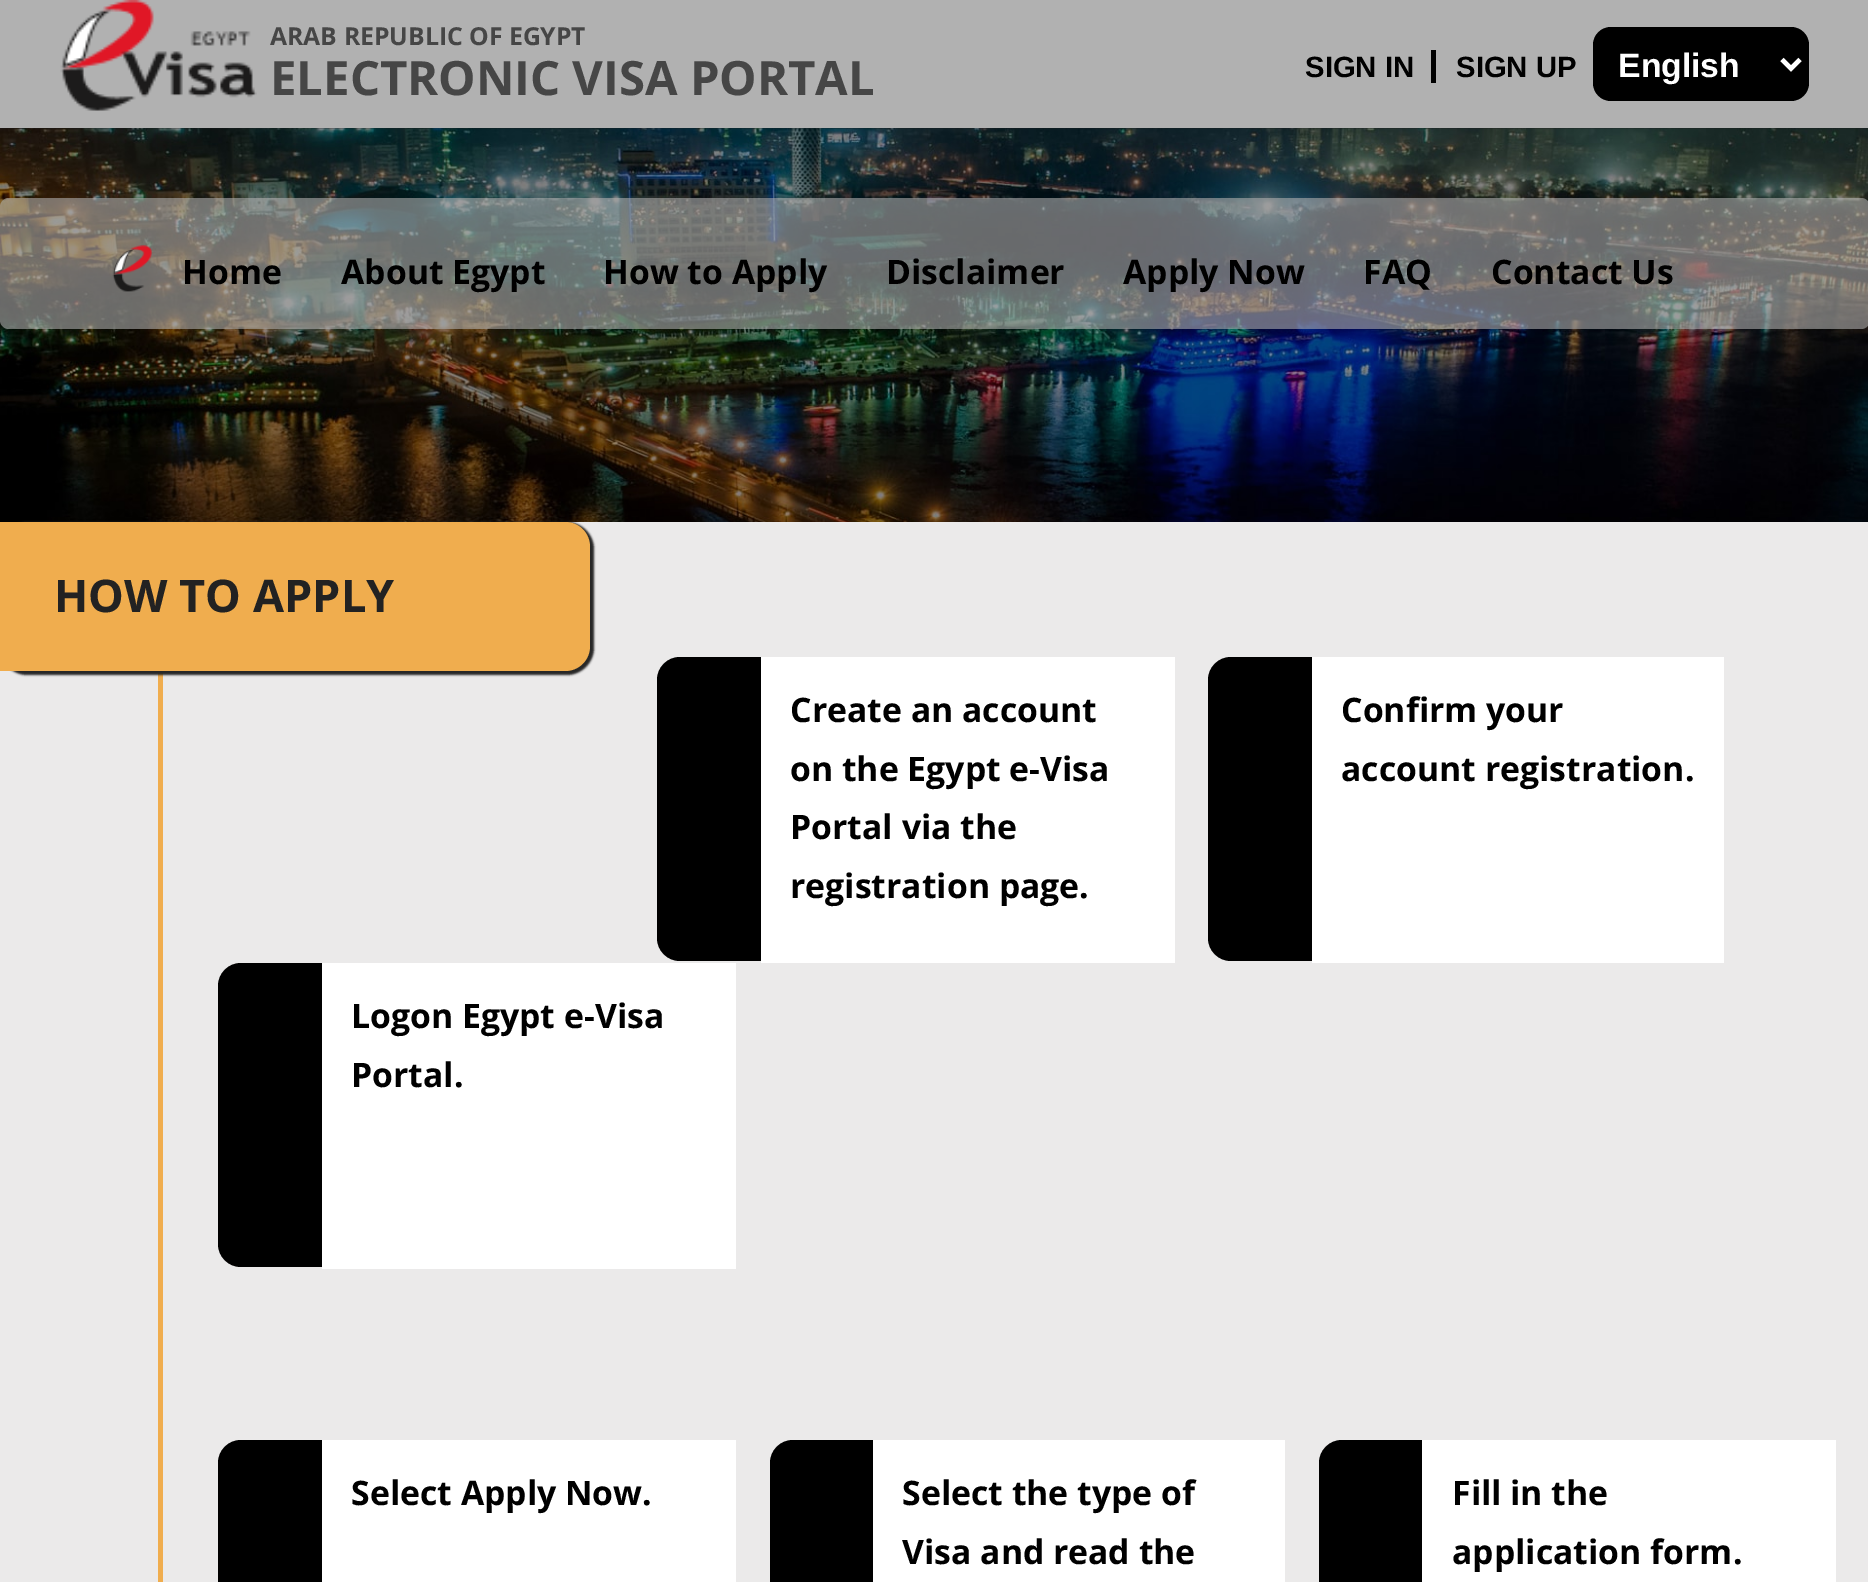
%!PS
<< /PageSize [1868 1582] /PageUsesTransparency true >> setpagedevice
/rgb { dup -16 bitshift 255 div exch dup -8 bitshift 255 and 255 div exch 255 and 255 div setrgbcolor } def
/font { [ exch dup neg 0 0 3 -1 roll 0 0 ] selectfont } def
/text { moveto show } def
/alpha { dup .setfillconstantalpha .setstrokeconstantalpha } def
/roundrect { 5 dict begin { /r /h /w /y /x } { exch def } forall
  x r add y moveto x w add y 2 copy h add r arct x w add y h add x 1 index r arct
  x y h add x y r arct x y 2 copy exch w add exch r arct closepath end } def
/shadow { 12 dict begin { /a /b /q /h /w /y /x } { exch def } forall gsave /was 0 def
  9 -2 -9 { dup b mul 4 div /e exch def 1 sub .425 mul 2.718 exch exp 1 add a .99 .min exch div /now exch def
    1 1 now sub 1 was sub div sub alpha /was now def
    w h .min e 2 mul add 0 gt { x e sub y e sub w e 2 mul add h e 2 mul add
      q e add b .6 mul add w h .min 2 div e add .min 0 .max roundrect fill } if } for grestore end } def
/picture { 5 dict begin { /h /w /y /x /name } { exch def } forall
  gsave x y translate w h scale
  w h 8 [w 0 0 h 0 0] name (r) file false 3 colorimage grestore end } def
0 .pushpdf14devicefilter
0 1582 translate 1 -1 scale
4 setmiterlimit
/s1 { /OpenSans-Bold 24.75 font 16#464646 rgb } def
/s2 { /OpenSans-Bold 47.25 font 16#464646 rgb } def
/s3 { /LiberationSans-Bold 29.25 font 16#000000 rgb } def
/s4 { /LiberationSans-Bold 33.75 font 16#FFFFFF rgb } def
/s5 { /OpenSans-Bold 33.75 font 16#000000 rgb } def
/s6 { /OpenSans-Bold 45 font 16#222222 rgb } def
16#EBEAEA rgb
0 0 1868 1582 rectfill
16#B1B1B1 rgb
0 0 1868 128 rectfill
(pic1.raw) 60 0 197 111 picture
s1
(ARAB REPUBLIC OF EGYPT) 270 45 text
s2
(ELECTRONIC VISA PORTAL) 270 95 text
s3
(SIGN IN) 1305 77 text
1431 50 5 33 rectfill
(SIGN UP) 1456 77 text
1593 27 216 74 18 roundrect fill
16#FFFFFF rgb
4.5 setlinewidth
1782 59.5 moveto 1791 68.5 lineto 1800 59.5 lineto stroke
s4
(English) 1618 77 text
(pic2.raw) 0 128 1868 394 picture
0.59 alpha
16#B1B1B1 rgb
0 198 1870 131 9 roundrect fill
1 alpha
(pic3.raw) 112 245 40 47 picture
s5
(Home) 182 284 text
(About Egypt) 341 284 text
(How to Apply) 603 284 text
(Disclaimer) 886 284 text
(Apply Now) 1123 284 text
(FAQ) 1363 284 text
(Contact Us) 1491 284 text
16#F0AD4E rgb
158 673 5 909 rectfill
16#222222 rgb
0 522 594 153 27 1 1 shadow
16#F0AD4E rgb
0 522 moveto 565 522 lineto 579 522 590 533 590 547 curveto 590 646 lineto 590 660 579 671 565 671 curveto 0 671 lineto closepath fill
s6
(HOW TO APPLY) 54 612 text
16#000000 rgb
657 657 227 304 23 roundrect fill
16#FFFFFF rgb
761 657 414 306 rectfill
s5
(Create an account) 790 722 text
(on the Egypt e-Visa) 790 781 text
(Portal via the) 790 839 text
(registration page.) 790 898 text
1208 657 228 304 23 roundrect fill
16#FFFFFF rgb
1312 657 412 306 rectfill
s5
(Confirm your) 1341 722 text
(account registration.) 1341 781 text
218 963 228 304 23 roundrect fill
16#FFFFFF rgb
322 963 414 306 rectfill
s5
(Logon Egypt e-Visa) 351 1028 text
(Portal.) 351 1087 text
218 1440 228 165 23 roundrect fill
16#FFFFFF rgb
322 1440 414 142 rectfill
s5
(Select Apply Now.) 351 1505 text
770 1440 227 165 23 roundrect fill
16#FFFFFF rgb
873 1440 412 142 rectfill
s5
(Select the type of) 902 1505 text
(Visa and read the) 902 1564 text
1319 1440 227 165 23 roundrect fill
16#FFFFFF rgb
1422 1440 414 142 rectfill
s5
(Fill in the) 1452 1505 text
(application form.) 1452 1564 text
.poppdf14devicefilter showpage
